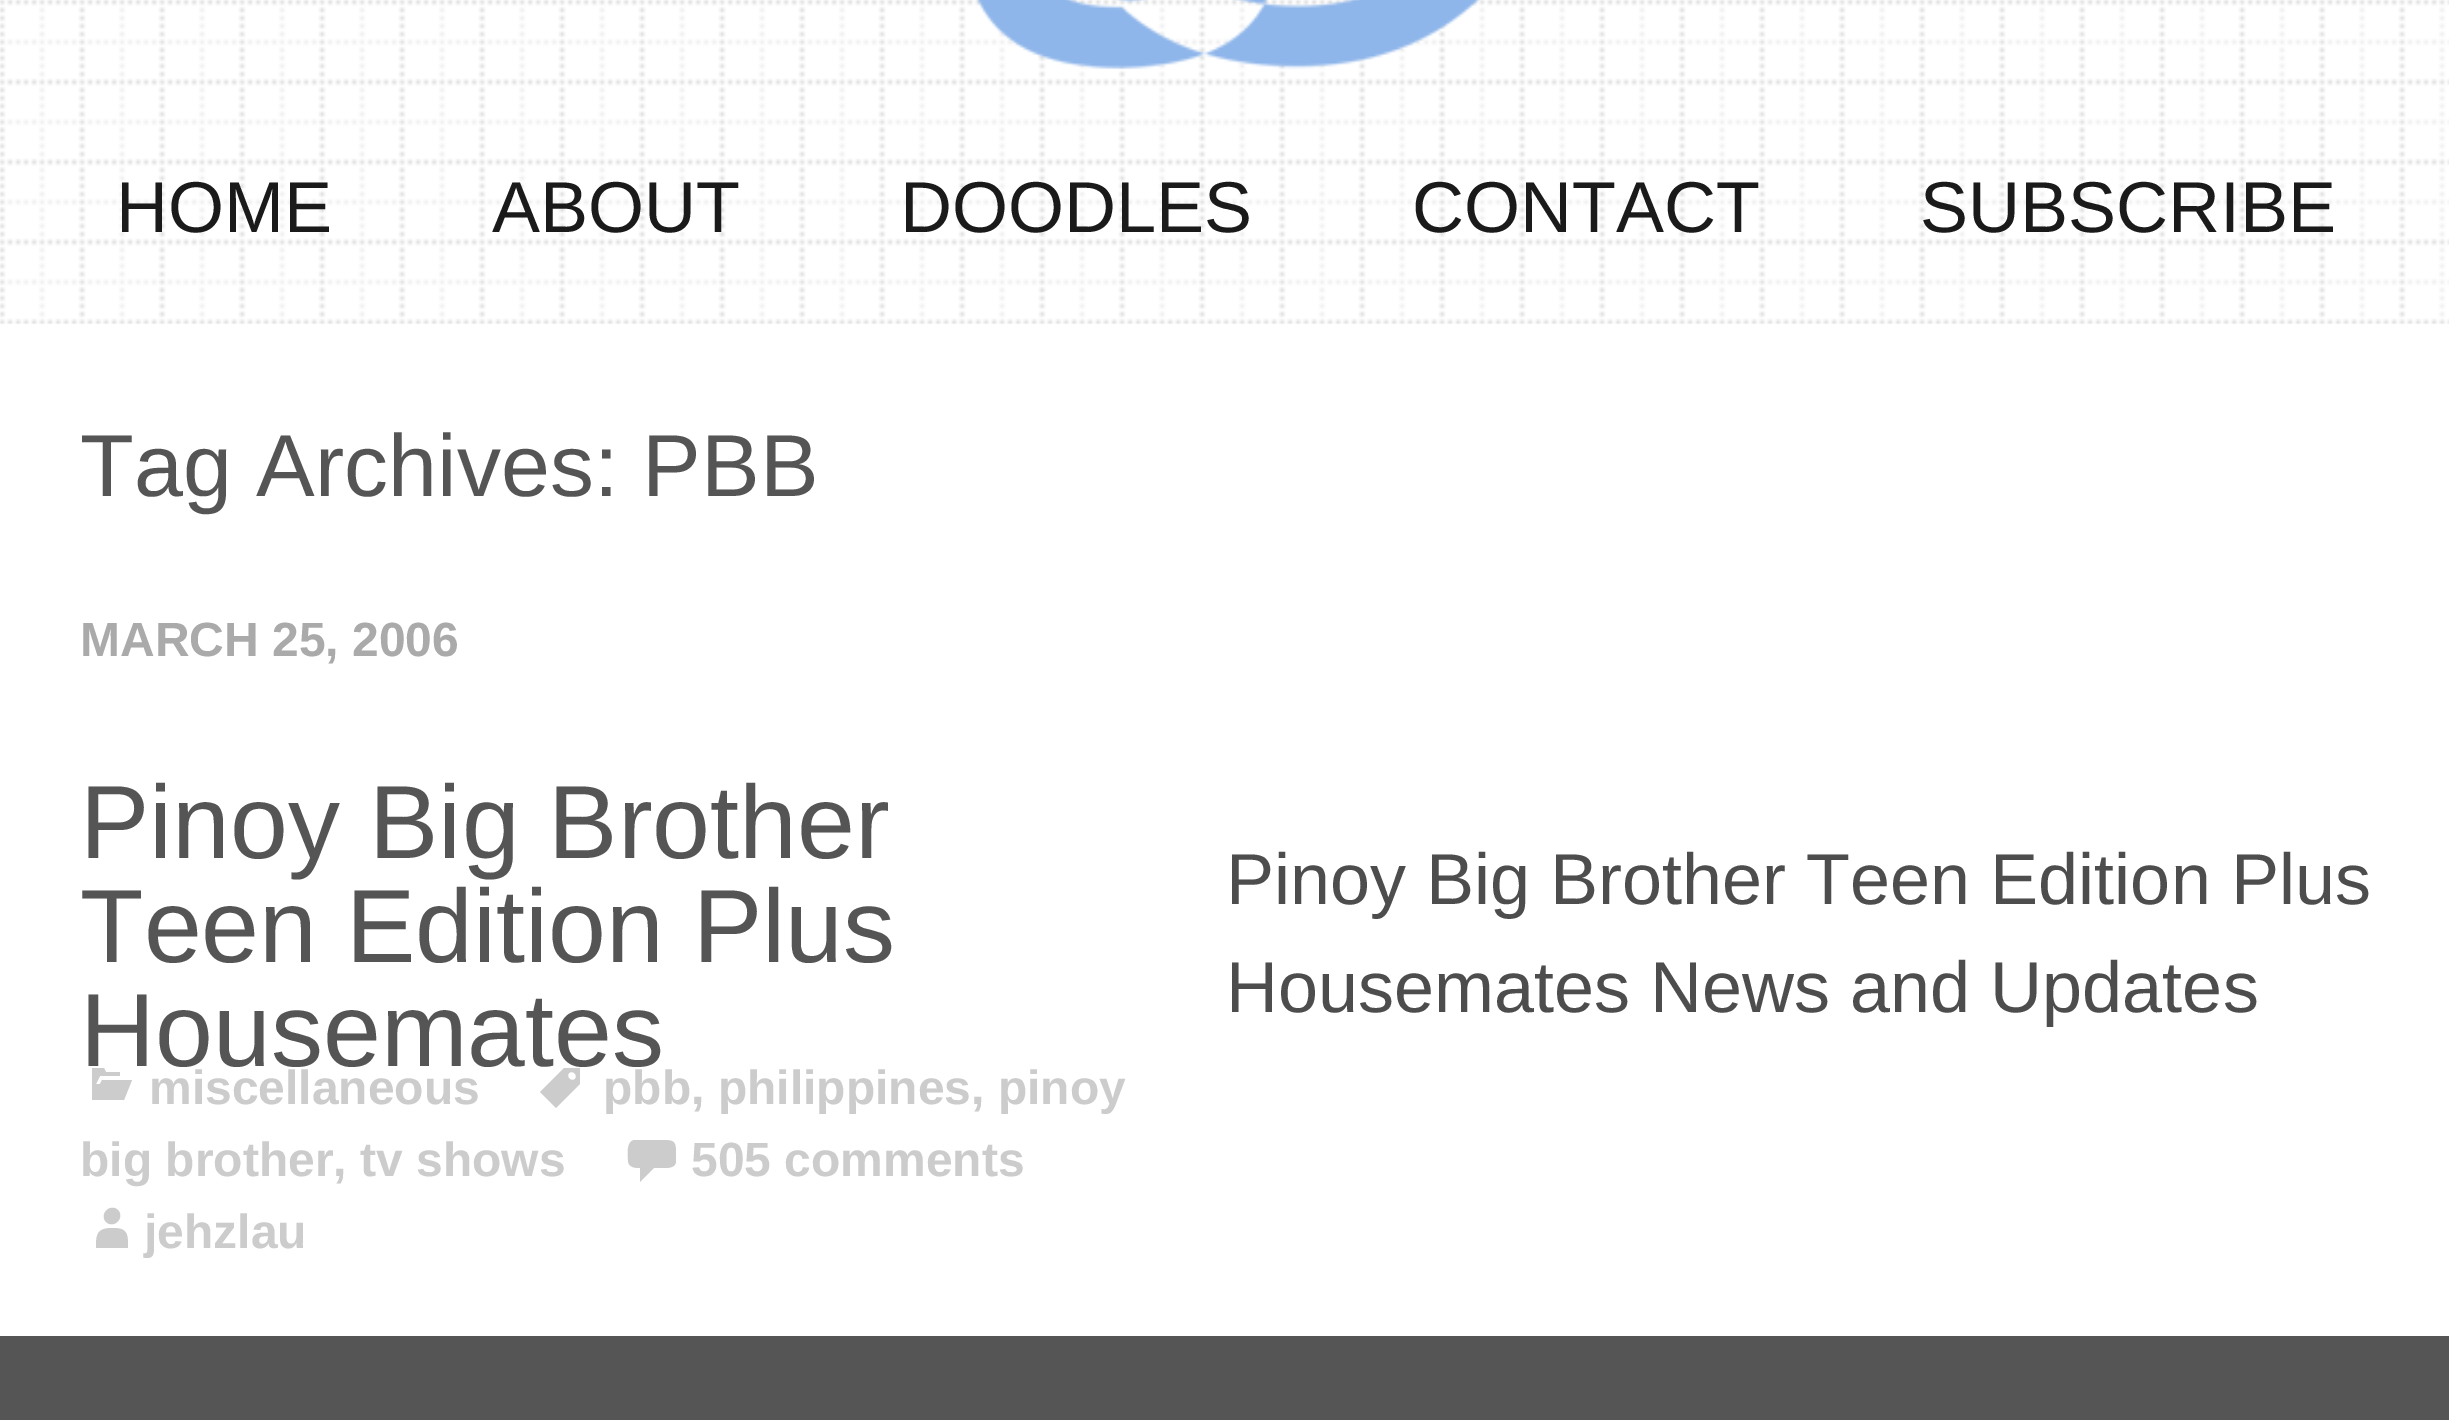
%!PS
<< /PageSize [2449 1420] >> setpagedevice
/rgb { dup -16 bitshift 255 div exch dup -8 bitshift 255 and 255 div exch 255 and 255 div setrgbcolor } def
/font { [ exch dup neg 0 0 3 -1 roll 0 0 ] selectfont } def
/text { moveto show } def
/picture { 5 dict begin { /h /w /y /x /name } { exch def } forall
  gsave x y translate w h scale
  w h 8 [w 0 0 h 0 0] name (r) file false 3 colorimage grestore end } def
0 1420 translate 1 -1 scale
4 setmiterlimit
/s1 { /LiberationSans-Regular 72 font 16#1A1A1A rgb } def
/s2 { /LiberationSans-Regular 88 font 16#555555 rgb } def
/s3 { /LiberationSans-Bold 48 font 16#AAAAAA rgb } def
/s4 { /LiberationSans-Regular 104 font 16#555555 rgb } def
/s5 { /LiberationSans-Bold 48 font 16#CCCCCC rgb } def
/s6 { /LiberationSans-Regular 72 font 16#4D4D4D rgb } def
16#FFFFFF rgb
0 0 2449 1420 rectfill
(pic1.raw) 0 0 2449 324 picture
(pic2.raw) 976 0 505 70 picture
s1
(HOME) 116 232 text
(ABOUT) 492 232 text
(DOODLES) 900 232 text
(CONTACT) 1412 232 text
(SUBSCRIBE) 1920 232 text
s2
(Tag Archives: PBB) 80 496 text
s3
(MARCH 25, 2006) 80 656 text
s4
(Pinoy Big Brother) 80 858 text
(Teen Edition Plus) 80 962 text
(Housemates) 80 1066 text
16#CCCCCC rgb
540 1092 moveto 564 1068 lineto 580 1068 lineto 580 1084 lineto 556 1108 lineto closepath 569 1073 moveto 566 1077 571 1082 575 1079 curveto 578 1075 573 1070 569 1073 curveto closepath fill
s5
(pbb, philippines, pinoy) 603 1104 text
(big brother, tv shows) 80 1176 text
92 1100 moveto 92 1068 lineto 104 1068 lineto 106 1072 lineto 120 1072 lineto 120 1076 lineto 100 1076 lineto 96 1084 lineto 100 1084 lineto 102 1080 lineto 132 1080 lineto 124 1100 lineto closepath fill
(miscellaneous) 149 1104 text
628 1160 moveto 628 1154 626 1142 634 1140 curveto 663 1140 lineto 675 1140 676 1142 676 1154 curveto 676 1162 lineto 675 1168 668 1168 663 1168 curveto 654 1168 lineto 640 1182 lineto 640 1168 lineto 634 1168 628 1167 628 1160 curveto closepath fill
(505 comments) 691 1176 text
96 1248 moveto 96 1234 97 1228 113 1228 curveto 128 1228 128 1235 128 1248 curveto closepath 106 1222 moveto 99 1214 110 1203 118 1210 curveto 125 1218 114 1229 106 1222 curveto closepath fill
(jehzlau) 144 1248 text
s6
(Pinoy Big Brother Teen Edition Plus) 1226 904 text
(Housemates News and Updates) 1226 1012 text
16#555555 rgb
0 1336 2449 84 rectfill
showpage
